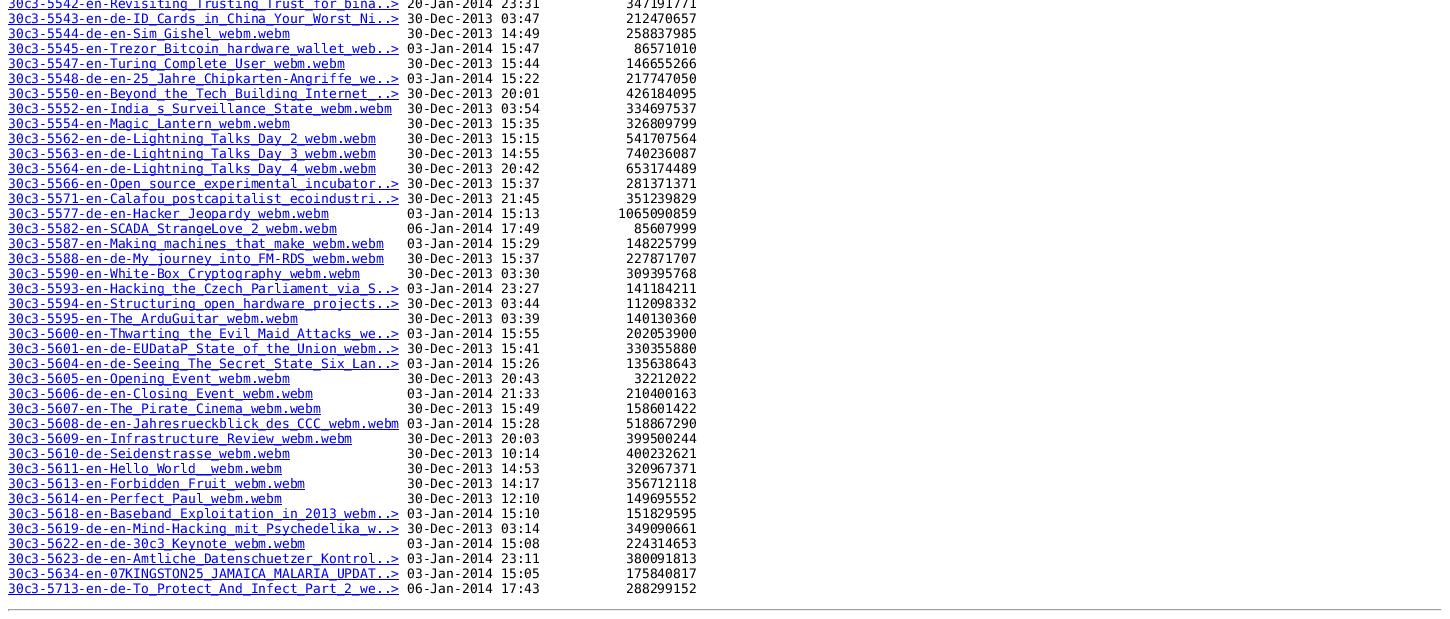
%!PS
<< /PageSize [1450 619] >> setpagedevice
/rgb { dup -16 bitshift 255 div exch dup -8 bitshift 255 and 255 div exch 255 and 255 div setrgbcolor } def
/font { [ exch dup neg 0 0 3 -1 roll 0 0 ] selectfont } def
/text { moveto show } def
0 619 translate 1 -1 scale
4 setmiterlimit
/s1 { /DejaVuSansMono-Regular 13 font 16#0000EE rgb } def
/s2 { /DejaVuSansMono-Regular 13 font 16#000000 rgb } def
16#FFFFFF rgb
0 0 1450 619 rectfill
16#0000EE rgb
8 9 391 1 rectfill
s1
(30c3-5542-en-Revisiting_Trusting_Trust_for_bina..>) 8 8 text
s2
(20-Jan-2014 23:31           347191771) 407 8 text
16#0000EE rgb
8 24 391 1 rectfill
(30c3-5543-en-de-ID_Cards_in_China_Your_Worst_Ni..>) 8 23 text
s2
(30-Dec-2013 03:47           212470657) 407 23 text
16#0000EE rgb
8 39 282 1 rectfill
(30c3-5544-de-en-Sim_Gishel_webm.webm) 8 38 text
s2
(30-Dec-2013 14:49           258837985) 407 38 text
16#0000EE rgb
8 54 391 1 rectfill
(30c3-5545-en-Trezor_Bitcoin_hardware_wallet_web..>) 8 53 text
s2
(03-Jan-2014 15:47            86571010) 407 53 text
16#0000EE rgb
8 69 337 1 rectfill
(30c3-5547-en-Turing_Complete_User_webm.webm) 8 68 text
s2
(30-Dec-2013 15:44           146655266) 407 68 text
16#0000EE rgb
8 84 391 1 rectfill
(30c3-5548-de-en-25_Jahre_Chipkarten-Angriffe_we..>) 8 83 text
s2
(03-Jan-2014 15:22           217747050) 407 83 text
16#0000EE rgb
8 99 391 1 rectfill
(30c3-5550-en-Beyond_the_Tech_Building_Internet_..>) 8 98 text
s2
(30-Dec-2013 20:01           426184095) 407 98 text
16#0000EE rgb
8 114 384 1 rectfill
(30c3-5552-en-India_s_Surveillance_State_webm.webm) 8 113 text
s2
(30-Dec-2013 03:54           334697537) 407 113 text
16#0000EE rgb
8 129 282 1 rectfill
(30c3-5554-en-Magic_Lantern_webm.webm) 8 128 text
s2
(30-Dec-2013 15:35           326809799) 407 128 text
16#0000EE rgb
8 144 368 1 rectfill
(30c3-5562-en-de-Lightning_Talks_Day_2_webm.webm) 8 143 text
s2
(30-Dec-2013 15:15           541707564) 407 143 text
16#0000EE rgb
8 159 368 1 rectfill
(30c3-5563-en-de-Lightning_Talks_Day_3_webm.webm) 8 158 text
s2
(30-Dec-2013 14:55           740236087) 407 158 text
16#0000EE rgb
8 174 368 1 rectfill
(30c3-5564-en-de-Lightning_Talks_Day_4_webm.webm) 8 173 text
s2
(30-Dec-2013 20:42           653174489) 407 173 text
16#0000EE rgb
8 189 391 1 rectfill
(30c3-5566-en-Open_source_experimental_incubator..>) 8 188 text
s2
(30-Dec-2013 15:37           281371371) 407 188 text
16#0000EE rgb
8 204 391 1 rectfill
(30c3-5571-en-Calafou_postcapitalist_ecoindustri..>) 8 203 text
s2
(30-Dec-2013 21:45           351239829) 407 203 text
16#0000EE rgb
8 219 321 1 rectfill
(30c3-5577-de-en-Hacker_Jeopardy_webm.webm) 8 218 text
s2
(03-Jan-2014 15:13          1065090859) 407 218 text
16#0000EE rgb
8 234 329 1 rectfill
(30c3-5582-en-SCADA_StrangeLove_2_webm.webm) 8 233 text
s2
(06-Jan-2014 17:49            85607999) 407 233 text
16#0000EE rgb
8 249 376 1 rectfill
(30c3-5587-en-Making_machines_that_make_webm.webm) 8 248 text
s2
(03-Jan-2014 15:29           148225799) 407 248 text
16#0000EE rgb
8 264 376 1 rectfill
(30c3-5588-en-de-My_journey_into_FM-RDS_webm.webm) 8 263 text
s2
(30-Dec-2013 15:37           227871707) 407 263 text
16#0000EE rgb
8 279 352 1 rectfill
(30c3-5590-en-White-Box_Cryptography_webm.webm) 8 278 text
s2
(30-Dec-2013 03:30           309395768) 407 278 text
16#0000EE rgb
8 294 391 1 rectfill
(30c3-5593-en-Hacking_the_Czech_Parliament_via_S..>) 8 293 text
s2
(03-Jan-2014 23:27           141184211) 407 293 text
16#0000EE rgb
8 309 391 1 rectfill
(30c3-5594-en-Structuring_open_hardware_projects..>) 8 308 text
s2
(30-Dec-2013 03:44           112098332) 407 308 text
16#0000EE rgb
8 324 290 1 rectfill
(30c3-5595-en-The_ArduGuitar_webm.webm) 8 323 text
s2
(30-Dec-2013 03:39           140130360) 407 323 text
16#0000EE rgb
8 339 391 1 rectfill
(30c3-5600-en-Thwarting_the_Evil_Maid_Attacks_we..>) 8 338 text
s2
(03-Jan-2014 15:55           202053900) 407 338 text
16#0000EE rgb
8 354 391 1 rectfill
(30c3-5601-en-de-EUDataP_State_of_the_Union_webm..>) 8 353 text
s2
(30-Dec-2013 15:41           330355880) 407 353 text
16#0000EE rgb
8 369 391 1 rectfill
(30c3-5604-en-de-Seeing_The_Secret_State_Six_Lan..>) 8 368 text
s2
(03-Jan-2014 15:26           135638643) 407 368 text
16#0000EE rgb
8 384 282 1 rectfill
(30c3-5605-en-Opening_Event_webm.webm) 8 383 text
s2
(30-Dec-2013 20:43            32212022) 407 383 text
16#0000EE rgb
8 399 305 1 rectfill
(30c3-5606-de-en-Closing_Event_webm.webm) 8 398 text
s2
(03-Jan-2014 21:33           210400163) 407 398 text
16#0000EE rgb
8 414 313 1 rectfill
(30c3-5607-en-The_Pirate_Cinema_webm.webm) 8 413 text
s2
(30-Dec-2013 15:49           158601422) 407 413 text
16#0000EE rgb
8 429 391 1 rectfill
(30c3-5608-de-en-Jahresrueckblick_des_CCC_webm.webm) 8 428 text
s2
(03-Jan-2014 15:28           518867290) 407 428 text
16#0000EE rgb
8 444 344 1 rectfill
(30c3-5609-en-Infrastructure_Review_webm.webm) 8 443 text
s2
(30-Dec-2013 20:03           399500244) 407 443 text
16#0000EE rgb
8 459 282 1 rectfill
(30c3-5610-de-Seidenstrasse_webm.webm) 8 458 text
s2
(30-Dec-2013 10:14           400232621) 407 458 text
16#0000EE rgb
8 474 274 1 rectfill
(30c3-5611-en-Hello_World__webm.webm) 8 473 text
s2
(30-Dec-2013 14:53           320967371) 407 473 text
16#0000EE rgb
8 489 297 1 rectfill
(30c3-5613-en-Forbidden_Fruit_webm.webm) 8 488 text
s2
(30-Dec-2013 14:17           356712118) 407 488 text
16#0000EE rgb
8 504 274 1 rectfill
(30c3-5614-en-Perfect_Paul_webm.webm) 8 503 text
s2
(30-Dec-2013 12:10           149695552) 407 503 text
16#0000EE rgb
8 519 391 1 rectfill
(30c3-5618-en-Baseband_Exploitation_in_2013_webm..>) 8 518 text
s2
(03-Jan-2014 15:10           151829595) 407 518 text
16#0000EE rgb
8 534 391 1 rectfill
(30c3-5619-de-en-Mind-Hacking_mit_Psychedelika_w..>) 8 533 text
s2
(30-Dec-2013 03:14           349090661) 407 533 text
16#0000EE rgb
8 549 297 1 rectfill
(30c3-5622-en-de-30c3_Keynote_webm.webm) 8 548 text
s2
(03-Jan-2014 15:08           224314653) 407 548 text
16#0000EE rgb
8 564 391 1 rectfill
(30c3-5623-de-en-Amtliche_Datenschuetzer_Kontrol..>) 8 563 text
s2
(03-Jan-2014 23:11           380091813) 407 563 text
16#0000EE rgb
8 579 391 1 rectfill
(30c3-5634-en-07KINGSTON25_JAMAICA_MALARIA_UPDAT..>) 8 578 text
s2
(03-Jan-2014 15:05           175840817) 407 578 text
16#0000EE rgb
8 594 391 1 rectfill
(30c3-5713-en-de-To_Protect_And_Infect_Part_2_we..>) 8 593 text
s2
(06-Jan-2014 17:43           288299152) 407 593 text
16#9F9F9F rgb
8 609 1434 1 rectfill
16#EEEEEE rgb
1441 609 1 2 rectfill
8 610 1434 1 rectfill
16#9F9F9F rgb
8 609 1 2 rectfill
showpage
